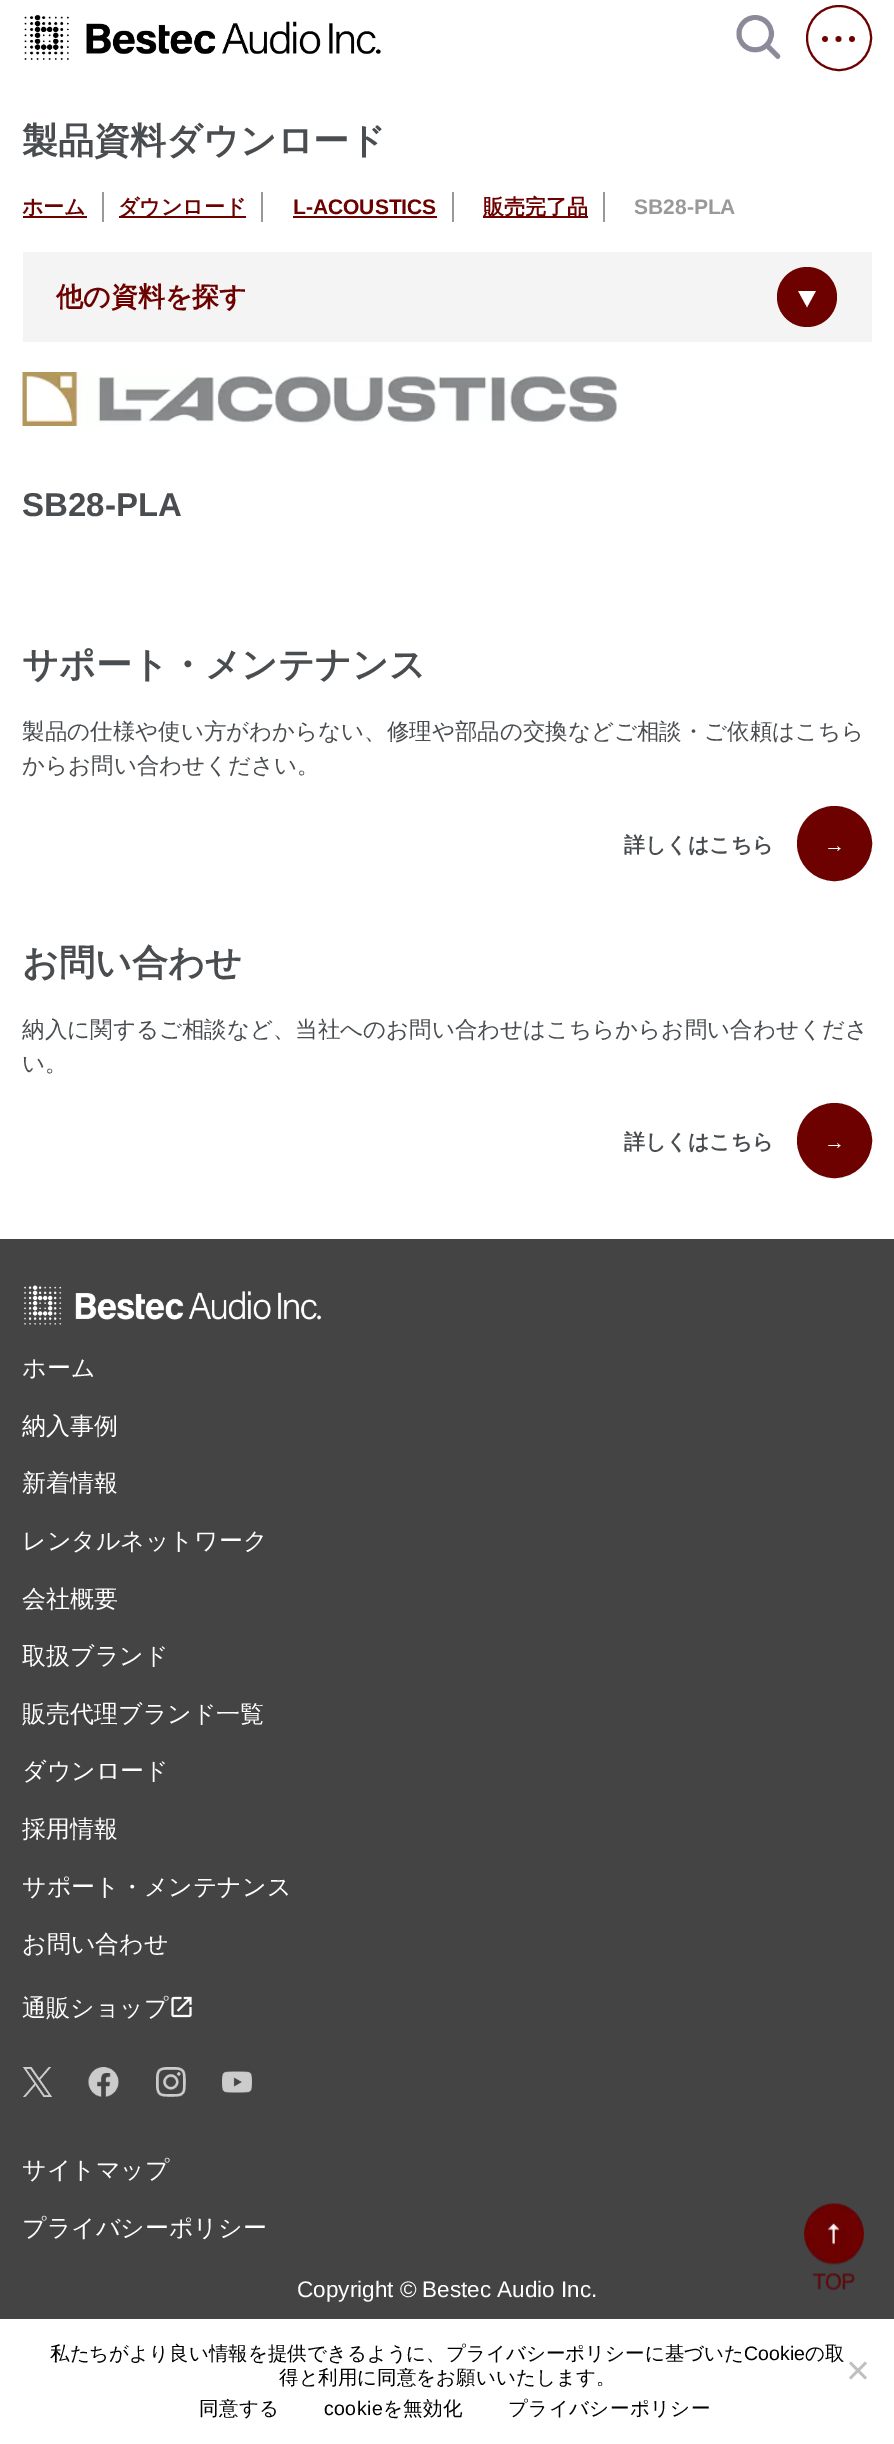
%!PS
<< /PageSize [894 2444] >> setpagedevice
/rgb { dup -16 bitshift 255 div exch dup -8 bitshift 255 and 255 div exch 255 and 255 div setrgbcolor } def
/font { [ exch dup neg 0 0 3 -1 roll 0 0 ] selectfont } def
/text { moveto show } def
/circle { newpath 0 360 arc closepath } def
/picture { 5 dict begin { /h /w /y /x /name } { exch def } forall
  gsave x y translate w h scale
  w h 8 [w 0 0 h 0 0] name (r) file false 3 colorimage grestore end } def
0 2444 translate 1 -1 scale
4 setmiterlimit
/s1 { /WenQuanYiZenHei-Bold 36 font 16#494D50 rgb } def
/s2 { /WenQuanYiZenHei-Bold 21 font 16#6C0100 rgb } def
/s3 { /LiberationSans-Bold 21 font 16#6C0100 rgb } def
/s4 { /LiberationSans-Bold 21 font 16#999999 rgb } def
/s5 { /WenQuanYiZenHei-Bold 27 font 16#6C0100 rgb } def
/s6 { /LiberationSans-Bold 33 font 16#494D50 rgb } def
/s7 { /WenQuanYiZenHei-Medium 22.5 font 16#494D50 rgb } def
/s8 { /WenQuanYiZenHei-Bold 21 font 16#494D50 rgb } def
/s9 { /LiberationSans-Bold 21 font 16#FFFFFF rgb } def
/s10 { /WenQuanYiZenHei-Medium 24 font 16#FFFFFF rgb } def
/s11 { /LiberationSans-Regular 22.5 font 16#FFFFFF rgb } def
/s12 { /WenQuanYiZenHei-Medium 19.5 font 16#000000 rgb } def
/s13 { /LiberationSans-Regular 19.5 font 16#000000 rgb } def
16#FFFFFF rgb
0 0 894 2444 rectfill
(pic1.raw) 24 14 357 46 picture
(pic2.raw) 736 15 45 45 picture
16#6C0100 rgb
2 setlinewidth
839 38 32 circle stroke
(pic3.raw) 822 36 33 6 picture
s1
(製品資料ダウンロード) 22 153 text
16#999999 rgb
102 192 2 30 rectfill
16#6C0100 rgb
23 216 64 2 rectfill
s2
(ホーム) 22 214 text
16#999999 rgb
261 192 2 30 rectfill
16#6C0100 rgb
119 216 127 2 rectfill
(ダウンロード) 118 214 text
16#999999 rgb
452 192 2 30 rectfill
s3
(L-ACOUSTICS) 293 214 text
293 216 144 2 rectfill
16#999999 rgb
603 192 2 30 rectfill
16#6C0100 rgb
483 216 105 2 rectfill
s2
(販売完了品) 483 214 text
s4
(SB28-PLA) 634 214 text
16#F4F4F4 rgb
23 252 849 90 rectfill
s5
(他の資料を探す) 56 306 text
807 297 30 circle fill
(pic4.raw) 798 291 18 17 picture
(pic5.raw) 22 372 595 54 picture
s6
(SB28-PLA) 22 516 text
s1
(サポート・メンテナンス) 22 677 text
s7
(製品の仕様や使い方がわからない、修理や部品の交換などご相談・ご依頼はこちら) 22 739 text
(からお問い合わせください。) 22 773 text
s8
(詳しくはこちら) 624 852 text
16#6C0100 rgb
834.5 843.5 36.5 circle gsave fill grestore
stroke
s9
(→) 824 852 text
s1
(お問い合わせ) 22 975 text
s7
(納入に関するご相談など、当社へのお問い合わせはこちらからお問い合わせくださ) 22 1037 text
(い。) 22 1071 text
s8
(詳しくはこちら) 624 1149 text
16#6C0100 rgb
834.5 1140.5 36.5 circle gsave fill grestore
stroke
s9
(→) 824 1149 text
16#444444 rgb
0 1239 894 1080 rectfill
(pic6.raw) 24 1285 298 40 picture
s10
(ホーム) 22 1376 text
(納入事例) 22 1434 text
(新着情報) 22 1491 text
(レンタルネットワーク) 22 1549 text
(会社概要) 22 1607 text
(取扱ブランド) 22 1664 text
(販売代理ブランド一覧) 22 1722 text
(ダウンロード) 22 1779 text
(採用情報) 22 1837 text
(サポート・メンテナンス) 22 1895 text
(お問い合わせ) 22 1952 text
(通販ショップ) 22 2016 text
(pic7.raw) 171 1996 21 22 picture
(pic8.raw) 22 2067 31 30 picture
(pic9.raw) 88 2067 31 30 picture
(pic10.raw) 156 2067 30 30 picture
(pic11.raw) 222 2071 30 22 picture
(サイトマップ) 22 2178 text
(プライバシーポリシー) 22 2236 text
s11
(Copyright © Bestec Audio Inc.) 297 2297 text
(pic12.raw) 804 2203 60 88 picture
s12
(私たちがより良い情報を提供できるように、プライバシーポリシーに基づいた) 50 2360 text
s13
(Cookie) 744 2360 text
s12
(の取) 805 2360 text
(得と利用に同意をお願いいたします。) 279 2384 text
16#C0C0C0 rgb
865 2361.5 moveto 867 2363.5 lineto 851 2379.5 lineto 849 2377.5 lineto closepath fill
849 2363.5 moveto 851 2361.5 lineto 867 2377.5 lineto 865 2379.5 lineto closepath fill
16#000000 rgb
199 2415 moveto 0.4 0 (同意する) ashow
/LiberationSans-Regular 19.5 font
324 2415 moveto 0.4 0 (cookie) ashow
/WenQuanYiZenHei-Medium 19.5 font
383 2415 moveto 0.4 0 (を無効化) ashow
508 2415 moveto 0.4 0 (プライバシーポリシー) ashow
showpage
